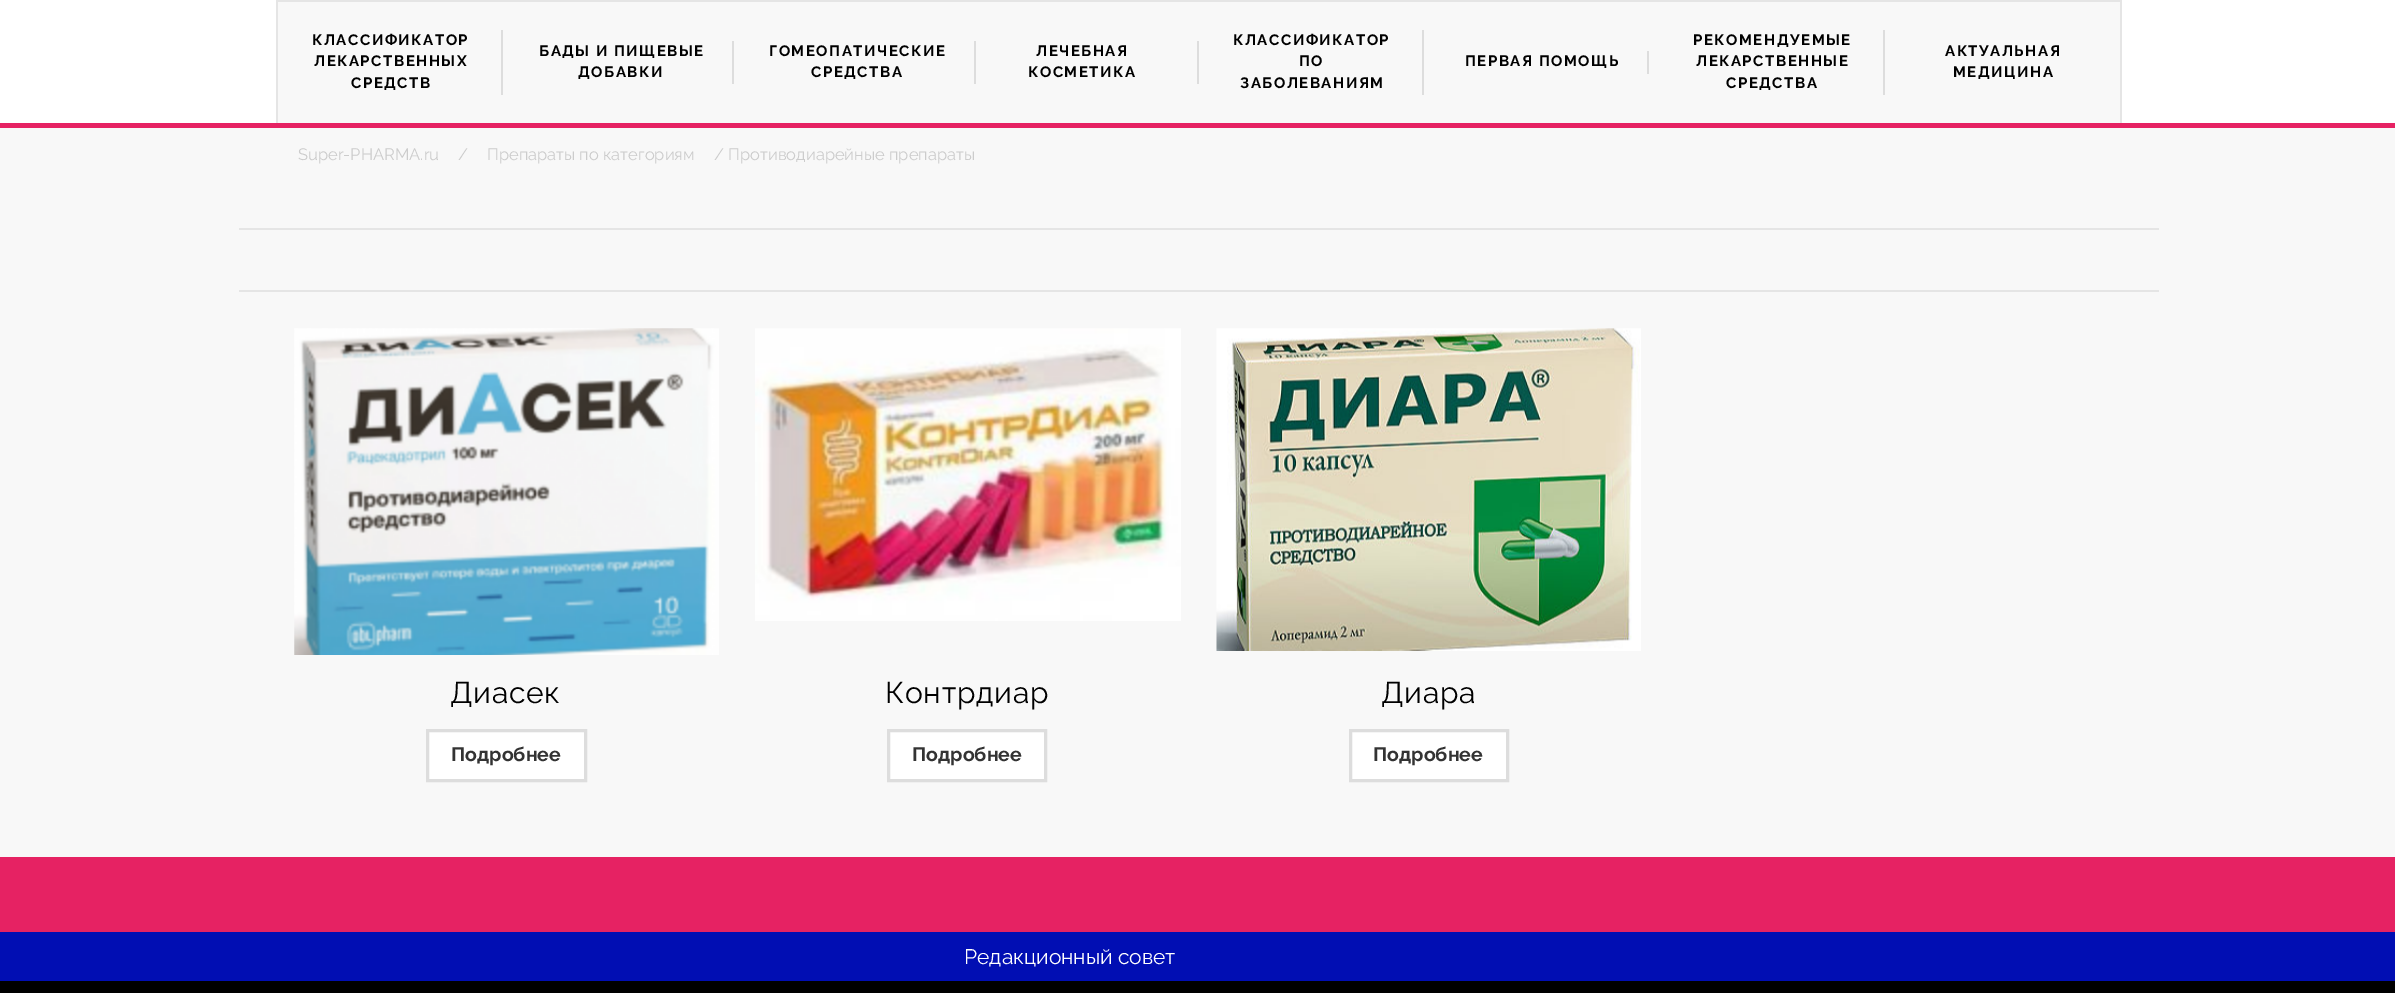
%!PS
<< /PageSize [2395 993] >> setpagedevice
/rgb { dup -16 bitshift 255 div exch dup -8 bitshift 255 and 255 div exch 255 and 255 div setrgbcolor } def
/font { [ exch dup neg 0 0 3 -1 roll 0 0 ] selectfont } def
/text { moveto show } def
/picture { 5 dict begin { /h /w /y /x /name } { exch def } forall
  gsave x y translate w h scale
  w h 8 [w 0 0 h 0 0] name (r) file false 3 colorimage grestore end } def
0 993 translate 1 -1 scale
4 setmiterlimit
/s1 { /Raleway-Regular 16.5 font 16#CCCCCC rgb } def
/s2 { /Raleway-Bold 19.5 font 16#333333 rgb } def
/s3 { /Raleway-Regular 21 font 16#FFFFFF rgb } def
16#F8F8F8 rgb
0 0 2395 993 rectfill
16#FFFFFF rgb
0 0 2395 123 rectfill
16#E62263 rgb
0 123 2395 5 rectfill
16#F8F8F8 rgb
278 2 1842 121 rectfill
16#E5E5E5 rgb
276 0 1845 2 rectfill
2120 0 2 123 rectfill
276 0 2 123 rectfill
16#DDDDDD rgb
501 30 2 65 rectfill
/Raleway-Bold 15 font
16#000000 rgb
312 45 moveto 1.5 0 (КЛАССИФИКАТОР) ashow
314 66 moveto 1.5 0 (ЛЕКАРСТВЕННЫХ) ashow
351 88 moveto 1.5 0 (СРЕДСТВ) ashow
16#DDDDDD rgb
732 41 2 43 rectfill
16#000000 rgb
539 56 moveto 1.5 0 (БАДЫ И ПИЩЕВЫЕ) ashow
578 77 moveto 1.5 0 (ДОБАВКИ) ashow
16#DDDDDD rgb
974 41 2 43 rectfill
16#000000 rgb
769 56 moveto 1.5 0 (ГОМЕОПАТИЧЕСКИЕ) ashow
811 77 moveto 1.5 0 (СРЕДСТВА) ashow
16#DDDDDD rgb
1197 41 2 43 rectfill
16#000000 rgb
1036 56 moveto 1.5 0 (ЛЕЧЕБНАЯ) ashow
1028 77 moveto 1.5 0 (КОСМЕТИКА) ashow
16#DDDDDD rgb
1422 30 2 65 rectfill
16#000000 rgb
1233 45 moveto 1.5 0 (КЛАССИФИКАТОР) ashow
1299 66 moveto 1.5 0 (ПО) ashow
1240 88 moveto 1.5 0 (ЗАБОЛЕВАНИЯМ) ashow
16#DDDDDD rgb
1647 51 2 23 rectfill
16#000000 rgb
1465 66 moveto 1.5 0 (ПЕРВАЯ ПОМОЩЬ) ashow
16#DDDDDD rgb
1883 30 2 65 rectfill
16#000000 rgb
1693 45 moveto 1.5 0 (РЕКОМЕНДУЕМЫЕ) ashow
1696 66 moveto 1.5 0 (ЛЕКАРСТВЕННЫЕ) ashow
1726 88 moveto 1.5 0 (СРЕДСТВА) ashow
1945 56 moveto 1.5 0 (АКТУАЛЬНАЯ) ashow
1953 77 moveto 1.5 0 (МЕДИЦИНА) ashow
s1
(Super-PHARMA.ru) 298 160 text
(/) 458 160 text
(Препараты по категориям) 487 160 text
(/ Противодиарейные препараты) 714 160 text
16#E5E5E5 rgb
239 228 1920 2 rectfill
239 290 1920 2 rectfill
(pic1.raw) 294 328 425 327 picture
/Raleway-Regular 30 font
16#000000 rgb
450 703 moveto 0.75 0 (Диасек) ashow
16#FFFFFF rgb
427.5 730.5 moveto 585.5 730.5 lineto 585.5 780.5 lineto 427.5 780.5 lineto closepath gsave fill grestore
16#DDDDDD rgb
3 setlinewidth
stroke
s2
(Подробнее) 451 761 text
(pic2.raw) 755 328 426 293 picture
/Raleway-Regular 30 font
16#000000 rgb
885 703 moveto 0.75 0 (Контрдиар) ashow
16#FFFFFF rgb
888.5 730.5 moveto 1045.5 730.5 lineto 1045.5 780.5 lineto 888.5 780.5 lineto closepath gsave fill grestore
16#DDDDDD rgb
stroke
s2
(Подробнее) 912 761 text
(pic3.raw) 1216 328 425 323 picture
/Raleway-Regular 30 font
16#000000 rgb
1381 703 moveto 0.75 0 (Диара) ashow
16#FFFFFF rgb
1350.5 730.5 moveto 1507.5 730.5 lineto 1507.5 780.5 lineto 1350.5 780.5 lineto closepath gsave fill grestore
16#DDDDDD rgb
stroke
s2
(Подробнее) 1373 761 text
16#E62263 rgb
0 857 2395 75 rectfill
16#010EB3 rgb
0 932 2395 49 rectfill
s3
(Редакционный совет) 964 964 text
16#000000 rgb
0 981 2395 12 rectfill
showpage
